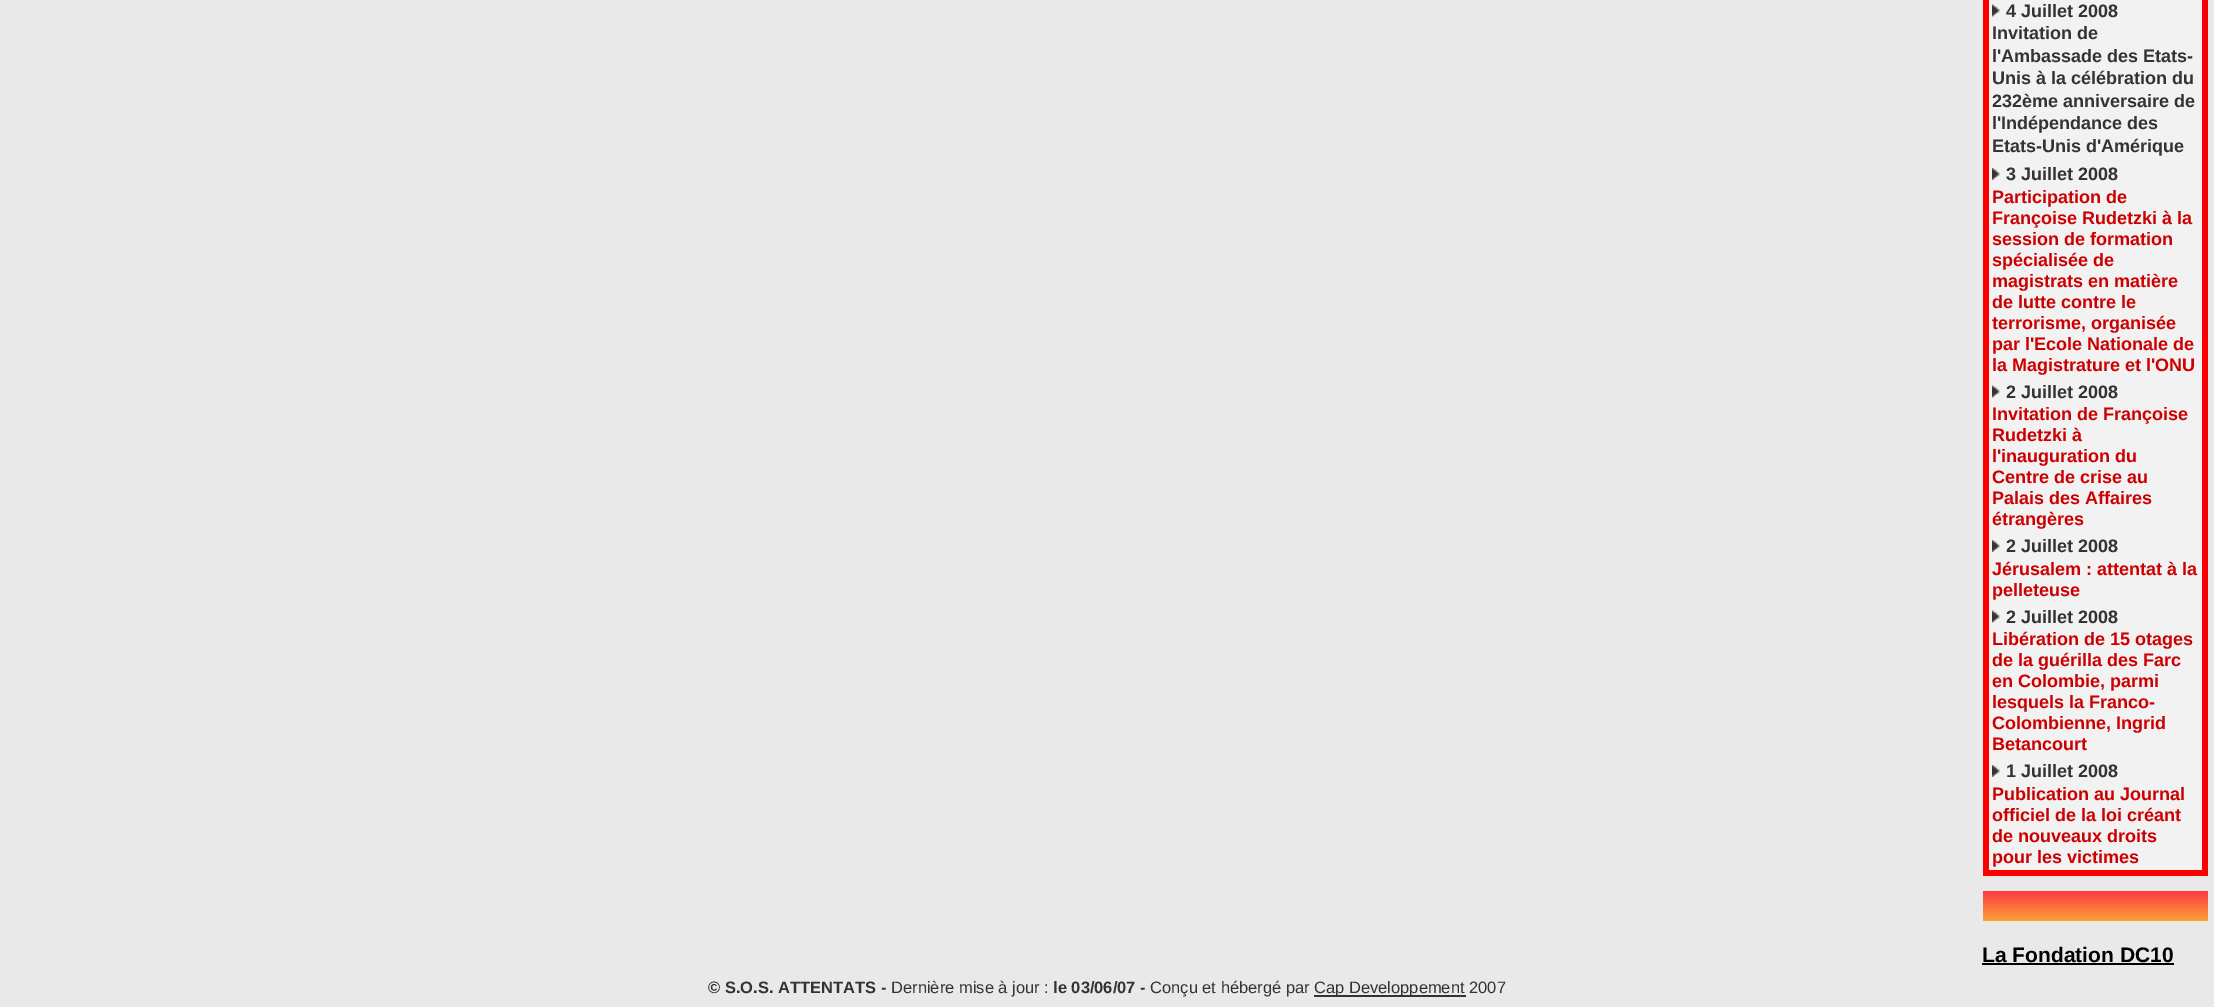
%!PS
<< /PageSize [2214 1007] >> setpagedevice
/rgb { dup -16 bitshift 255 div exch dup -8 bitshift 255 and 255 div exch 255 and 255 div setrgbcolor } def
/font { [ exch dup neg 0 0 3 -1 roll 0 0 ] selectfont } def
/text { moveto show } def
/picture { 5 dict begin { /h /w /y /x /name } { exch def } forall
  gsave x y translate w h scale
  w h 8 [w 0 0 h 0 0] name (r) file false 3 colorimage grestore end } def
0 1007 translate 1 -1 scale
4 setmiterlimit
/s1 { /LiberationSans-Bold 18 font 16#333333 rgb } def
/s2 { /LiberationSans-Bold 18 font 16#CC0000 rgb } def
/s3 { /LiberationSans-Bold 21 font 16#000000 rgb } def
/s4 { /LiberationSans-Bold 16.5 font 16#333333 rgb } def
/s5 { /LiberationSans-Regular 16.5 font 16#333333 rgb } def
16#E9E9E9 rgb
0 0 2214 1007 rectfill
16#FF0000 rgb
1983 0 225 876 rectfill
16#F2F2F2 rgb
1989 0 213 870 rectfill
(pic1.raw) 1992 4 8 13 picture
s1
(4 Juillet 2008) 2006 17 text
(Invitation de) 1992 39 text
(l'Ambassade des Etats-) 1992 62 text
(Unis à la célébration du) 1992 84 text
(232ème anniversaire de) 1992 107 text
(l'Indépendance des) 1992 129 text
(Etats-Unis d'Amérique) 1992 152 text
(pic2.raw) 1992 168 8 12 picture
(3 Juillet 2008) 2006 180 text
s2
(Participation de) 1992 203 text
(Françoise Rudetzki à la) 1992 224 text
(session de formation) 1992 245 text
(spécialisée de) 1992 266 text
(magistrats en matière) 1992 287 text
(de lutte contre le) 1992 308 text
(terrorisme, organisée) 1992 329 text
(par l'Ecole Nationale de) 1992 350 text
(la Magistrature et l'ONU) 1992 371 text
(pic1.raw) 1992 385 8 13 picture
s1
(2 Juillet 2008) 2006 398 text
s2
(Invitation de Françoise) 1992 420 text
(Rudetzki à) 1992 441 text
(l'inauguration du) 1992 462 text
(Centre de crise au) 1992 483 text
(Palais des Affaires) 1992 504 text
(étrangères) 1992 525 text
(pic2.raw) 1992 540 8 12 picture
s1
(2 Juillet 2008) 2006 552 text
s2
(Jérusalem : attentat à la) 1992 575 text
(pelleteuse) 1992 596 text
(pic1.raw) 1992 610 8 13 picture
s1
(2 Juillet 2008) 2006 623 text
s2
(Libération de 15 otages) 1992 645 text
(de la guérilla des Farc) 1992 666 text
(en Colombie, parmi) 1992 687 text
(lesquels la Franco-) 1992 708 text
(Colombienne, Ingrid) 1992 729 text
(Betancourt) 1992 750 text
(pic2.raw) 1992 765 8 12 picture
s1
(1 Juillet 2008) 2006 777 text
s2
(Publication au Journal) 1992 800 text
(officiel de la loi créant) 1992 821 text
(de nouveaux droits) 1992 842 text
(pour les victimes) 1992 863 text
gsave 1983 891 moveto 2208 891 lineto 2208 921 lineto 1983 921 lineto closepath clip newpath
<< /ShadingType 2 /ColorSpace /DeviceRGB /Coords [2096 891 2096 921] /Extend [true true] /Function << /FunctionType 2 /Domain [0 1] /C0 [0.992 0.227 0.251] /C1 [0.992 0.631 0.22] /N 1 >> >> shfill grestore
s3
(La Fondation DC10) 1982 962 text
1982 963 192 2 rectfill
s4
(© S.O.S. ATTENTATS -) 708 993 text
s5
(Dernière mise à jour :) 891 993 text
s4
(le 03/06/07 -) 1053 993 text
s5
(Conçu et hébergé par) 1150 993 text
1314 995 152 2 rectfill
(Cap Developpement 2007) 1314 993 text
showpage
